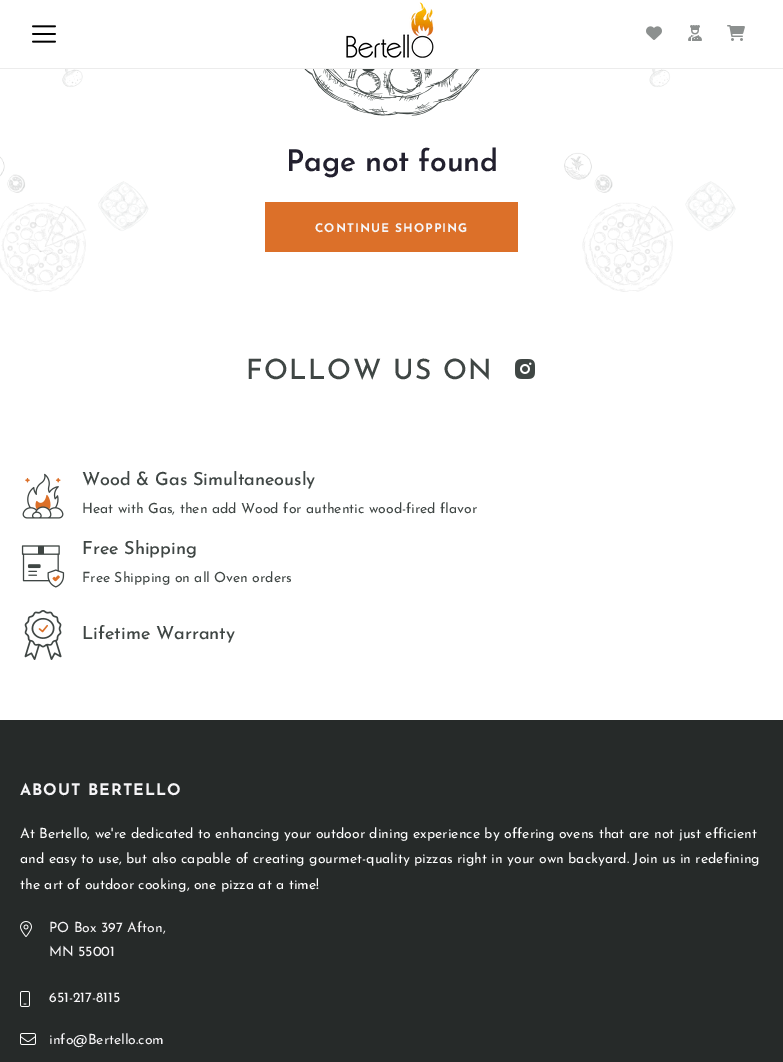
%!PS
<< /PageSize [783 1062] >> setpagedevice
/rgb { dup -16 bitshift 255 div exch dup -8 bitshift 255 and 255 div exch 255 and 255 div setrgbcolor } def
/font { [ exch dup neg 0 0 3 -1 roll 0 0 ] selectfont } def
/text { moveto show } def
/picture { 5 dict begin { /h /w /y /x /name } { exch def } forall
  gsave x y translate w h scale
  w h 8 [w 0 0 h 0 0] name (r) file false 3 colorimage grestore end } def
0 1062 translate 1 -1 scale
4 setmiterlimit
/s1 { /JosefinSans-Medium 18 font 16#3F4644 rgb } def
/s2 { /JosefinSans-Regular 14 font 16#3F4644 rgb } def
/s3 { /JosefinSans-Regular 14 font 16#FFFFFF rgb } def
/s4 { /JosefinSans-Regular 14 font 16#F6F5F7 rgb } def
16#FFFFFF rgb
0 0 783 1062 rectfill
16#ECECEC rgb
0 68 783 1 rectfill
(pic1.raw) 32 25 24 18 picture
(pic2.raw) 346 2 88 56 picture
(pic3.raw) 646 26 16 14 picture
(pic4.raw) 688 25 14 16 picture
(pic5.raw) 727 25 18 16 picture
(pic6.raw) 0 69 736 223 picture
(pic7.raw) 304 69 176 47 picture
/JosefinSans-SemiBold 30 font
16#22202E rgb
286 171 moveto -0.25 0 (Page not found) ashow
16#DC7029 rgb
265 202 253 50 rectfill
/JosefinSans-Bold 12 font
16#F6F5F7 rgb
315 232 moveto 1 0 (CONTINUE SHOPPING) ashow
/JosefinSans-Medium 28 font
16#3F4644 rgb
246 379 moveto 1.4 0 (FOLLOW US ON) ashow
(pic8.raw) 515 359 20 20 picture
(pic9.raw) 22 473 42 46 picture
s1
(Wood & Gas Simultaneously) 82 485 text
s2
(Heat with Gas, then add Wood for authentic wood-fired flavor) 82 513 text
(pic10.raw) 21 545 44 43 picture
s1
(Free Shipping) 82 554 text
s2
(Free Shipping on all Oven orders) 82 582 text
(pic11.raw) 24 610 38 50 picture
s1
(Lifetime Warranty) 82 639 text
16#262A29 rgb
0 720 783 342 rectfill
/JosefinSans-Bold 16 font
16#F6F5F7 rgb
20 795 moveto 1 0 (ABOUT BERTELLO) ashow
s3
(At Bertello, we're dedicated to enhancing your outdoor dining experience by offering ovens that are not just efficient) 20 838 text
(and easy to use, but also capable of creating gourmet-quality pizzas right in your own backyard. Join us in redefining) 20 863 text
(the art of outdoor cooking, one pizza at a time!) 20 889 text
(pic12.raw) 20 921 12 16 picture
s4
(PO Box 397 Afton,) 49 932 text
(MN 55001) 49 956 text
(pic13.raw) 20 991 10 16 picture
(651-217-8115) 49 1002 text
(pic14.raw) 20 1033 16 12 picture
(info@Bertello.com) 49 1044 text
showpage
